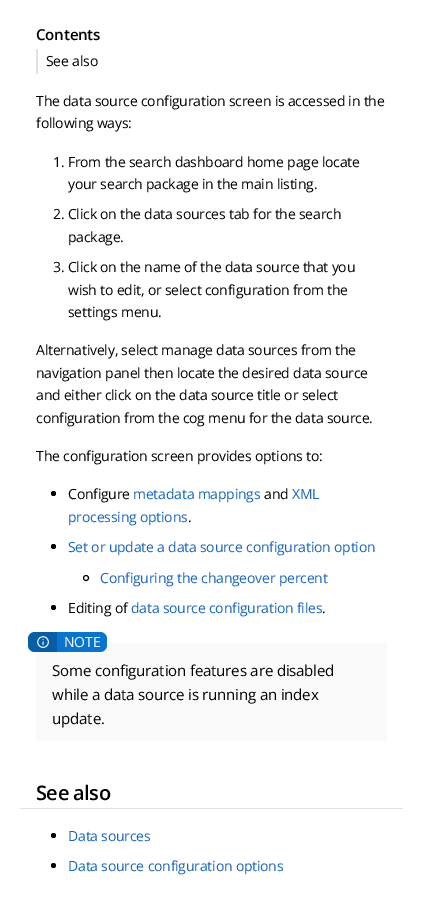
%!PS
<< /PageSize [423 916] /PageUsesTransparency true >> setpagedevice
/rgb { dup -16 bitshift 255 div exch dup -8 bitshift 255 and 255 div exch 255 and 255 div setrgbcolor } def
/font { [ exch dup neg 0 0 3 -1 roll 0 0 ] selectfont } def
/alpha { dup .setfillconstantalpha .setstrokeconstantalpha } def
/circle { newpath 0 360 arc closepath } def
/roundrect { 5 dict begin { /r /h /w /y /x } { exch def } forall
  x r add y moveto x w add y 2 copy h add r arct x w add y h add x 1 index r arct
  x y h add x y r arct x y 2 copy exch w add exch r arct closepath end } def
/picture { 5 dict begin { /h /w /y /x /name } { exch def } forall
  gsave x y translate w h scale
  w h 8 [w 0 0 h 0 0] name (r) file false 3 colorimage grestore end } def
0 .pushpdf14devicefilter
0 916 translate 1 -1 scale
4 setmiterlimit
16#FFFFFF rgb
0 0 423 916 rectfill
/OpenSans-SemiBold 15.1 font
16#000000 rgb
36 40 moveto -0.2 0 (Contents) ashow
16#E1E1E1 rgb
36 49 2 25 rectfill
/OpenSans-Regular 14 font
16#000000 rgb
46 66 moveto -0.2 0 (See also) ashow
36 106 moveto -0.2 0 (The data source configuration screen is accessed in the) ashow
36 128 moveto -0.2 0 (following ways:) ashow
53 167 moveto -0.2 0 (1. From the search dashboard home page locate) ashow
68 189 moveto -0.2 0 (your search package in the main listing.) ashow
53 219 moveto -0.2 0 (2. Click on the data sources tab for the search) ashow
68 242 moveto -0.2 0 (package.) ashow
53 272 moveto -0.2 0 (3. Click on the name of the data source that you) ashow
68 295 moveto -0.2 0 (wish to edit, or select configuration from the) ashow
68 317 moveto -0.2 0 (settings menu.) ashow
36 355 moveto -0.2 0 (Alternatively, select manage data sources from the) ashow
36 378 moveto -0.2 0 (navigation panel then locate the desired data source) ashow
36 400 moveto -0.2 0 (and either click on the data source title or select) ashow
36 423 moveto -0.2 0 (configuration from the cog menu for the data source.) ashow
36 461 moveto -0.2 0 (The configuration screen provides options to:) ashow
53.5 493.5 2.5 circle fill
68 499 moveto -0.2 0 (Configure) ashow
16#1565C0 rgb
133 499 moveto -0.2 0 (metadata mappings) ashow
16#000000 rgb
264 499 moveto -0.2 0 (and) ashow
16#1565C0 rgb
292 499 moveto -0.2 0 (XML) ashow
68 522 moveto -0.2 0 (processing options) ashow
16#000000 rgb
188 522 moveto -0.2 0 (.) ashow
53.5 546.5 2.5 circle fill
16#1565C0 rgb
68 552 moveto -0.2 0 (Set or update a data source configuration option) ashow
16#000000 rgb
86 578 2.5 circle stroke
16#1565C0 rgb
100 583 moveto -0.2 0 (Configuring the changeover percent) ashow
16#000000 rgb
53.5 607.5 2.5 circle fill
68 613 moveto -0.2 0 (Editing of) ashow
16#1565C0 rgb
131 613 moveto -0.2 0 (data source configuration files) ashow
16#000000 rgb
322 613 moveto -0.2 0 (.) ashow
16#FAFAFA rgb
36 642 351 100 rectfill
16#0774D2 rgb
28 632 79 20 7 roundrect fill
0.2 alpha
16#000000 rgb
35 632 moveto 57 632 lineto 57 652 lineto 35 652 lineto 31 652 28 649 28 645 curveto 28 639 lineto 28 635 31 632 35 632 curveto closepath fill
1 alpha
(pic1.raw) 37 636 12 12 picture
16#FFFFFF rgb
64 647 moveto -0.2 0 (NOTE) ashow
/OpenSans-Regular 15.1 font
16#000000 rgb
52 676 moveto -0.2 0 (Some configuration features are disabled) ashow
52 700 moveto -0.2 0 (while a data source is running an index) ashow
52 724 moveto -0.2 0 (update.) ashow
16#E1E1E1 rgb
20 808 383 1 rectfill
/OpenSans-SemiBold 20 font
16#000000 rgb
36 800 moveto -0.5 0 (See also) ashow
53.5 835.5 2.5 circle fill
/OpenSans-Regular 14 font
16#1565C0 rgb
68 841 moveto -0.2 0 (Data sources) ashow
16#000000 rgb
53.5 865.5 2.5 circle fill
16#1565C0 rgb
68 871 moveto -0.2 0 (Data source configuration options) ashow
.poppdf14devicefilter showpage
